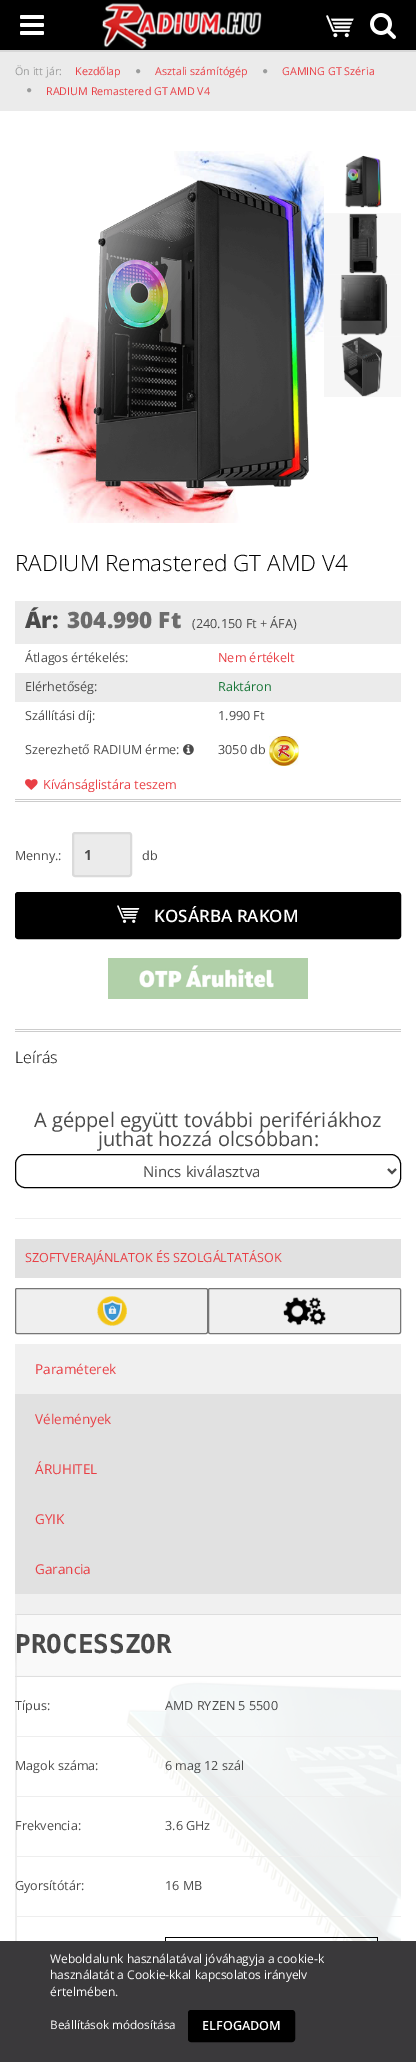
%!PS
<< /PageSize [416 2062] >> setpagedevice
/rgb { dup -16 bitshift 255 div exch dup -8 bitshift 255 and 255 div exch 255 and 255 div setrgbcolor } def
/font { [ exch dup neg 0 0 3 -1 roll 0 0 ] selectfont } def
/text { moveto show } def
/roundrect { 5 dict begin { /r /h /w /y /x } { exch def } forall
  x r add y moveto x w add y 2 copy h add r arct x w add y h add x 1 index r arct
  x y h add x y r arct x y 2 copy exch w add exch r arct closepath end } def
/picture { 5 dict begin { /h /w /y /x /name } { exch def } forall
  gsave x y translate w h scale
  w h 8 [w 0 0 h 0 0] name (r) file false 3 colorimage grestore end } def
0 2062 translate 1 -1 scale
4 setmiterlimit
/s1 { /OpenSans-Regular 10.75 font 16#9B9C9C rgb } def
/s2 { /OpenSans-Regular 10.75 font 16#E93F45 rgb } def
/s3 { /OpenSans-Light 22.5 font 16#000000 rgb } def
/s4 { /OpenSans-ExtraBold 22.5 font 16#4A4A4A rgb } def
/s5 { /OpenSans-ExtraBold 22.5 font 16#6C6C6C rgb } def
/s6 { /OpenSans-Regular 12.6 font 16#4A4A4A rgb } def
/s7 { /OpenSans-Regular 12.6 font 16#E93F45 rgb } def
/s8 { /OpenSans-Regular 12.6 font 16#177537 rgb } def
/s9 { /OpenSans-Bold 14 font 16#4A4A4A rgb } def
/s10 { /OpenSans-SemiBold 17 font 16#FFFFFF rgb } def
/s11 { /OpenSans-Light 16 font 16#000000 rgb } def
/s12 { /OpenSans-Regular 20 font 16#4A4A4A rgb } def
/s13 { /OpenSans-Regular 15 font 16#4A4A4A rgb } def
/s14 { /OpenSans-Regular 13.5 font 16#E93F45 rgb } def
/s15 { /DejaVuSansMono-Bold 26 font 16#4A4A4A rgb } def
/s16 { /OpenSans-Regular 12 font 16#FFFFFF rgb } def
/s17 { /OpenSans-Regular 11.75 font 16#FFFFFF rgb } def
/s18 { /OpenSans-SemiBold 12.6 font 16#FFFFFF rgb } def
16#FFFFFF rgb
0 0 416 2062 rectfill
16#000000 rgb
0 0 416 50 rectfill
(pic1.raw) 20 15 24 20 picture
(pic2.raw) 101 3 161 47 picture
(pic3.raw) 326 15 28 23 picture
(pic4.raw) 370 13 26 26 picture
16#D7D7D7 rgb
0 50 416 2 rectfill
16#EBEBEB rgb
0 52 416 59 rectfill
s1
(Ön itt jár:) 15 75 text
s2
(Kezdőlap) 75 75 text
(pic5.raw) 136 69 5 5 picture
(Asztali számítógép) 155 75 text
(pic5.raw) 263 69 5 5 picture
(GAMING GT Széria) 282 75 text
(pic5.raw) 27 88 5 5 picture
(RADIUM Remastered GT AMD V4) 46 95 text
(pic6.raw) 15 151 350 372 picture
(pic7.raw) 324 155 58 58 picture
(pic8.raw) 324 213 77 61 picture
(pic9.raw) 324 274 77 62 picture
(pic10.raw) 324 336 77 61 picture
s3
(RADIUM Remastered GT AMD V4) 15 571 text
16#EBEBEB rgb
15 601 386 43 rectfill
s4
(Ár:) 25 628 text
s5
(304.990 Ft) 67 628 text
s6
(\(240.150 Ft + ÁFA\)) 192 628 text
(Átlagos értékelés:) 25 662 text
s7
(Nem értékelt) 218 662 text
16#EBEBEB rgb
15 673 386 29 rectfill
s6
(Elérhetőség:) 25 691 text
s8
(Raktáron) 218 691 text
s6
(Szállítási díj:) 25 720 text
(1.990 Ft) 218 720 text
(Szerezhető RADIUM érme:) 25 754 text
(pic11.raw) 183 744 11 11 picture
(3050 db) 218 754 text
(pic12.raw) 269 736 30 30 picture
(pic13.raw) 25 779 13 11 picture
s7
(Kívánságlistára teszem) 43 789 text
16#CCCCCC rgb
15 799 386 1 rectfill
15 801 386 1 rectfill
15 1029 386 1 rectfill
15 1031 386 1 rectfill
s6
(Menny.:) 15 860 text
16#EBEBEB rgb
73 833 58 43 2 roundrect gsave fill grestore
16#DADADA rgb
2 setlinewidth
stroke
s9
(1) 84 860 text
s6
(db) 142 860 text
16#000000 rgb
16 893 384 45 2 roundrect gsave fill grestore
stroke
(pic14.raw) 117 905 23 18 picture
s10
(KOSÁRBA RAKOM) 154 922 text
(pic15.raw) 108 958 200 41 picture
s11
(Leírás) 15 1063 text
s12
(A géppel együtt további perifériákhoz) 34 1127 text
(juthat hozzá olcsóbban:) 98 1146 text
16#000000 rgb
1 setlinewidth
15.5 1154.5 385 33 9.5 roundrect stroke
16#4A4A4A rgb
2 setlinewidth
388 1169 moveto 392 1173 lineto 396 1169 lineto stroke
s13
(Nincs kiválasztva) 143 1177 text
16#EEEEEE rgb
15 1218 386 1 rectfill
16#E1E1E1 rgb
15 1239 386 39 rectfill
s7
(SZOFTVERAJÁNLATOK ÉS SZOLGÁLTATÁSOK) 25 1262 text
16#EFEFEF rgb
15.5 1288.5 192 45 1.5 roundrect gsave fill grestore
16#767676 rgb
1 setlinewidth
stroke
(pic16.raw) 97 1296 30 30 picture
16#EFEFEF rgb
208.5 1288.5 192 45 1.5 roundrect gsave fill grestore
16#767676 rgb
stroke
(pic17.raw) 283 1297 43 29 picture
16#E1E1E1 rgb
15 1394 386 200 rectfill
16#F0F0F0 rgb
15 1344 386 50 rectfill
s14
(Paraméterek) 35 1374 text
(Vélemények) 35 1424 text
(ÁRUHITEL) 35 1474 text
(GYIK) 35 1524 text
(Garancia) 35 1574 text
16#F0F0F0 rgb
15 1594 386 20 rectfill
(pic18.raw) 15 1614 386 327 picture
s15
(PROCESSZOR) 15 1653 text
s6
(Típus:) 15 1710 text
(AMD RYZEN 5 5500) 165 1710 text
16#EEEEEE rgb
15 1736 386 1 rectfill
s6
(Magok száma:) 15 1770 text
(6 mag 12 szál) 165 1770 text
16#EEEEEE rgb
15 1796 386 1 rectfill
s6
(Frekvencia:) 15 1830 text
(3.6 GHz) 165 1830 text
16#EEEEEE rgb
15 1856 365 1 rectfill
s6
(Gyorsítótár:) 15 1890 text
(16 MB) 165 1890 text
16#EEEEEE rgb
15 1916 386 1 rectfill
16#000000 rgb
165 1937 213 1 rectfill
377 1937 1 4 rectfill
165 1937 1 4 rectfill
16#3A393B rgb
0 1941 416 121 rectfill
s16
(Weboldalunk használatával jóváhagyja a cookie-k) 50 1963 text
(használatát a Cookie-kkal kapcsolatos irányelv) 50 1979 text
(értelmében.) 50 1996 text
s17
(Beállítások módosítása) 50 2029 text
16#000000 rgb
189 2011 105 30 2 roundrect gsave fill grestore
2 setlinewidth
stroke
s18
(ELFOGADOM) 202 2030 text
showpage
